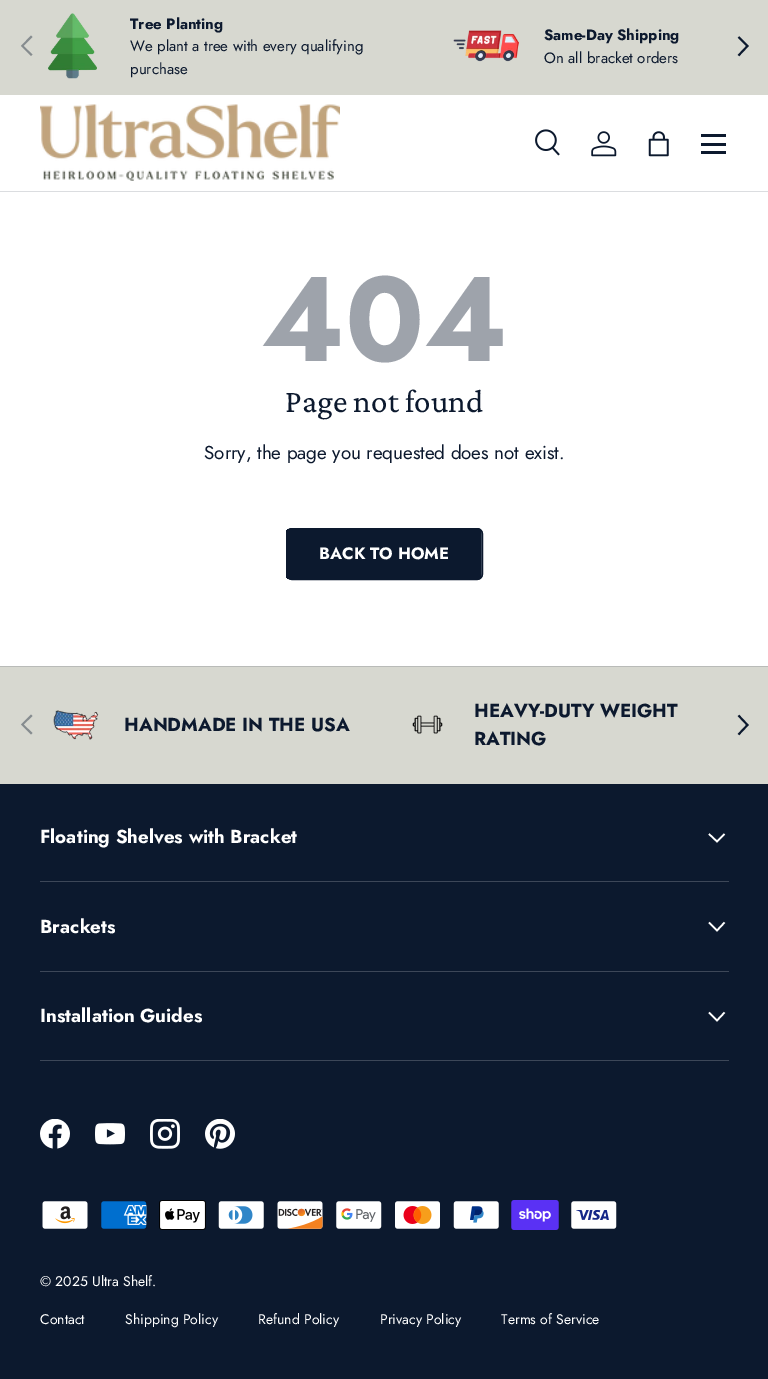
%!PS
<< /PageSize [768 1379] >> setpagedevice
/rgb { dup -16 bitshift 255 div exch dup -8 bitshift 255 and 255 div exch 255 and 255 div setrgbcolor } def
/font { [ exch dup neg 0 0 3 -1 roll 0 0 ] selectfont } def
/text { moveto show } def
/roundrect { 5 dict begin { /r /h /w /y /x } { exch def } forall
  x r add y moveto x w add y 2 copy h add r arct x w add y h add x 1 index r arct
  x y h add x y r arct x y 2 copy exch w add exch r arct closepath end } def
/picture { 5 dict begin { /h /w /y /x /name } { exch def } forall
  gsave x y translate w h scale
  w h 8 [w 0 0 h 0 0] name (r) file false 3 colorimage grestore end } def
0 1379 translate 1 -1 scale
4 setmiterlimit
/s1 { /Jost-Bold 15 font 16#0C192E rgb } def
/s2 { /Jost-Regular 15 font 16#0C192E rgb } def
/s3 { /Jost-Bold 120 font 16#9EA3AB rgb } def
/s4 { /CrimsonPro-Regular 33 font 16#0C192E rgb } def
/s5 { /Jost-Regular 18.75 font 16#0C192E rgb } def
/s6 { /Jost-Bold 16.5 font 16#FFFFFF rgb } def
/s7 { /Jost-Bold 18.75 font 16#0C192E rgb } def
/s8 { /Jost-Bold 18.75 font 16#FFFFFF rgb } def
/s9 { /Jost-Regular 14 font 16#FFFFFF rgb } def
16#FFFFFF rgb
0 0 768 1379 rectfill
16#D7D8D0 rgb
0 0 768 95 rectfill
(pic1.raw) 48 13 49 66 picture
s1
(Tree Planting) 130 29 text
s2
(We plant a tree with every qualifying) 130 51 text
(purchase) 130 74 text
(pic2.raw) 453 30 66 32 picture
s1
(Same-Day Shipping) 544 40 text
s2
(On all bracket orders) 544 63 text
16#868C8F rgb
21 46 moveto 31 35.5 lineto 32.5 37 lineto 23.5 46 lineto 32.5 54.5 lineto 31 56 lineto closepath fill
16#0C192E rgb
1.9 setlinewidth
738.5 37 moveto 747.5 46 lineto 738.5 55.5 lineto stroke
16#DBDDE0 rgb
0 191 768 1 rectfill
(pic3.raw) 40 104 300 77 picture
(pic4.raw) 535 129 25 27 picture
(pic5.raw) 591 131 26 26 picture
(pic6.raw) 648 131 21 26 picture
16#0C192E rgb
701 134 25 3 rectfill
701 151 25 3 rectfill
701 143 25 3 rectfill
s3
(404) 261 361 text
s4
(Page not found) 285 412 text
s5
(Sorry, the page you requested does not exist.) 204 459 text
16#364356 rgb
286 528 197 52 6 roundrect fill
gsave
286 528 197 52 6 roundrect clip newpath
gsave 286 529 moveto 481 529 lineto 481 579 lineto 286 579 lineto closepath clip newpath
<< /ShadingType 2 /ColorSpace /DeviceRGB /Coords [-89 484 470 623] /Extend [true true] /Function << /FunctionType 3 /Domain [0 1] /Functions [<< /FunctionType 2 /Domain [0 1] /C0 [0.212 0.263 0.337] /C1 [0.212 0.263 0.337] /N 1 >> << /FunctionType 2 /Domain [0 1] /C0 [0.047 0.098 0.18] /C1 [0.047 0.098 0.18] /N 1 >>] /Bounds [0.6] /Encode [0 1 0 1] >> >> shfill grestore
grestore
16#0C192E rgb
1 setlinewidth
286.5 528.5 196 51 5.5 roundrect stroke
s6
(BACK TO HOME) 319 559 text
16#D7D8D0 rgb
0 667 768 117 rectfill
16#B9BBB8 rgb
0 666 768 1 rectfill
(pic7.raw) 53 710 46 30 picture
s7
(HANDMADE IN THE USA) 124 731 text
(pic8.raw) 412 715 31 19 picture
(HEAVY-DUTY WEIGHT) 474 717 text
(RATING) 474 745 text
16#868C8F rgb
21 724.5 moveto 31 714.5 lineto 32.5 716 lineto 23.5 724.5 lineto 32.5 733 lineto 31 734.5 lineto closepath fill
16#0C192E rgb
1.9 setlinewidth
738.5 715.5 moveto 747.5 725 lineto 738.5 734.5 lineto stroke
0 784 768 595 rectfill
16#3D4758 rgb
40 881 689 1 rectfill
s8
(Floating Shelves with Bracket) 40 843 text
1.6 setlinewidth
724.5 834 moveto 717 841.5 lineto 709 834 lineto stroke
16#3D4758 rgb
40 971 689 1 rectfill
s8
(Brackets) 40 933 text
724.5 922.5 moveto 717 930.5 lineto 709 922.5 lineto stroke
16#3D4758 rgb
40 1060 689 1 rectfill
s8
(Installation Guides) 40 1022 text
724.5 1012.5 moveto 717 1020.5 lineto 709 1012.5 lineto stroke
(pic9.raw) 40 1119 30 30 picture
(pic10.raw) 95 1123 30 22 picture
(pic11.raw) 150 1119 30 30 picture
(pic12.raw) 205 1119 30 30 picture
(pic13.raw) 42 1201 46 28 picture
(pic14.raw) 101 1201 46 28 picture
(pic15.raw) 159 1200 47 30 picture
(pic16.raw) 218 1201 46 28 picture
(pic17.raw) 277 1201 46 28 picture
(pic18.raw) 336 1201 46 28 picture
(pic19.raw) 395 1201 45 28 picture
(pic20.raw) 453 1201 46 28 picture
(pic21.raw) 511 1200 48 30 picture
(pic22.raw) 571 1201 46 28 picture
s9
(© 2025 Ultra Shelf.) 40 1286 text
(Contact) 40 1324 text
(Shipping Policy) 125 1324 text
(Refund Policy) 258 1324 text
(Privacy Policy) 380 1324 text
(Terms of Service) 501 1324 text
showpage
